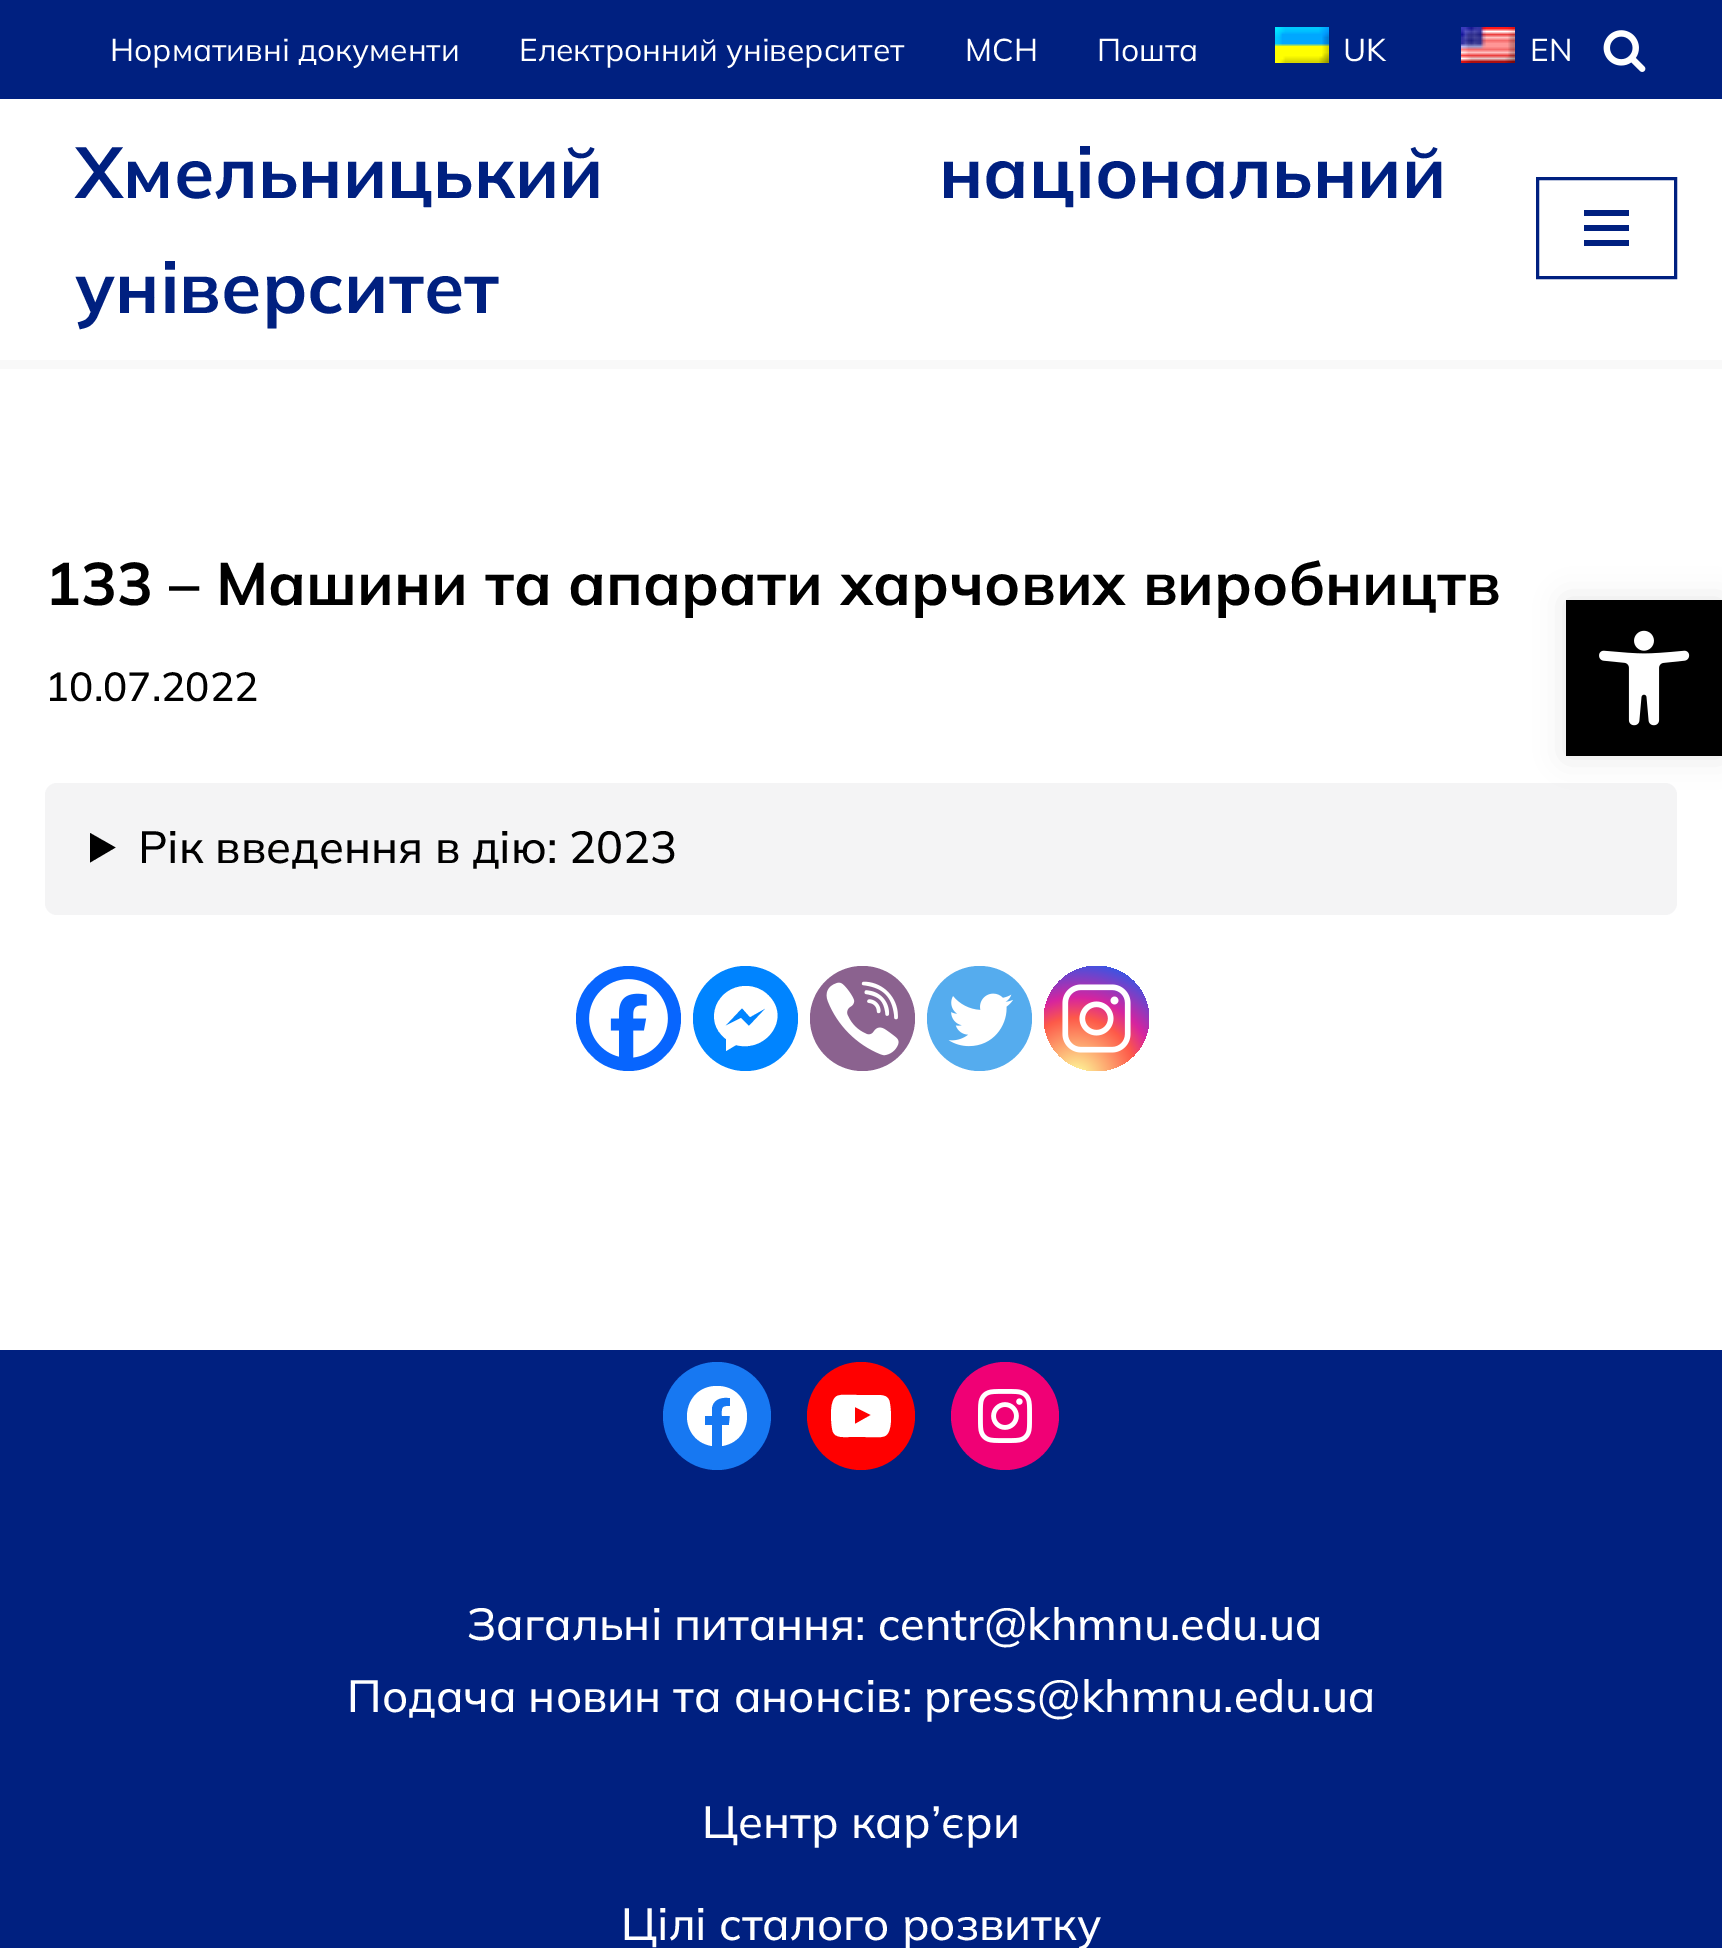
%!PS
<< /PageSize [1722 1948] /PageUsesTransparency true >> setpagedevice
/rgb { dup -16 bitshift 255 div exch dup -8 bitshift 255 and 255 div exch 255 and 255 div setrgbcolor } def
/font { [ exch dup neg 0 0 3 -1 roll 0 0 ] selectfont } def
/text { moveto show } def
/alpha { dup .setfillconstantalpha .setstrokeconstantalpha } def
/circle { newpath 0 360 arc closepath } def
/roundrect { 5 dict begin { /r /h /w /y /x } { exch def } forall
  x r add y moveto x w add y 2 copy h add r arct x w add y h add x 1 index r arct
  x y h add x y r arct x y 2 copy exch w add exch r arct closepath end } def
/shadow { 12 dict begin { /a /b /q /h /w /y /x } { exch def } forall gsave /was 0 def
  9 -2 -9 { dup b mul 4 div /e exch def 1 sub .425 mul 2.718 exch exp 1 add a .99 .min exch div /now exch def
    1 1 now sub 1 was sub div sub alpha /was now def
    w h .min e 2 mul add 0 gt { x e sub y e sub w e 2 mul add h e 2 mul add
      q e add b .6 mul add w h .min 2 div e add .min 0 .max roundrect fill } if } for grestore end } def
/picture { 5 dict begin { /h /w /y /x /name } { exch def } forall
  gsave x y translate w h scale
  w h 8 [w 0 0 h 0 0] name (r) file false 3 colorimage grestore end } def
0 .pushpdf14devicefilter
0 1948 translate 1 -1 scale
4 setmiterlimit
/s1 { /Mulish-Regular 31.5 font 16#FFFFFF rgb } def
/s2 { /Mulish-Bold 72 font 16#002080 rgb } def
/s3 { /Mulish-Bold 60 font 16#000000 rgb } def
/s4 { /Mulish-Medium 40.5 font 16#000000 rgb } def
/s5 { /Mulish-Medium 45 font 16#000000 rgb } def
/s6 { /Mulish-Medium 45 font 16#FFFFFF rgb } def
16#FFFFFF rgb
0 0 1722 1948 rectfill
16#002080 rgb
0 0 1722 99 rectfill
s1
(Нормативні документи) 110 61 text
(Електронний університет) 519 61 text
(МСН) 965 61 text
(Пошта) 1097 61 text
(pic1.raw) 1275 27 54 36 picture
(UK) 1343 61 text
(pic2.raw) 1461 27 54 36 picture
(EN) 1530 61 text
(pic3.raw) 1603 30 43 42 picture
16#F9F9F9 rgb
0 360 1722 9 rectfill
/Mulish-Bold 72 font
16#002080 rgb
75 198 moveto 316 0 32 (Хмельницький національний) widthshow
(університет) 75 313 text
3 setlinewidth
1537.5 178.5 138 99 rectstroke
1584 210 45 6 rectfill
1584 225 45 6 rectfill
1584 240 45 6 rectfill
s3
(133 – Машини та апарати харчових виробництв) 45 605 text
s4
(10.07.2022) 45 701 text
16#F4F4F5 rgb
45 783 1632 132 12 roundrect fill
16#000000 rgb
90 833 moveto 115.5 847.5 lineto 90 862.5 lineto closepath fill
s5
(Рік введення в дію: 2023) 138 863 text
16#0765FE rgb
628.5 1018.5 52.5 circle fill
(pic4.raw) 589 979 79 79 picture
16#0084FF rgb
745.5 1018.5 52.5 circle fill
16#FFFFFF rgb
746 986 moveto 717 986 702 1021 726 1039 curveto 726 1051 lineto 736 1045 lineto 766 1053 792 1018 768 995 curveto 762 989 754 986 746 986 curveto closepath 749 1026 moveto 741 1018 lineto 725 1026 lineto 742 1008 lineto 750 1017 lineto 766 1008 lineto closepath fill
16#8B628F rgb
862.5 1018.5 52.5 circle fill
(pic5.raw) 826 981 73 75 picture
16#55ACEE rgb
979.5 1018.5 52.5 circle fill
(pic6.raw) 948 993 65 54 picture
gsave 1096.5 1018.5 52.5 circle clip newpath 1076 1078 translate 134 134 scale
<< /ShadingType 3 /ColorSpace /DeviceRGB /Coords [0 0 0 0 0 1] /Extend [true true] /Function << /FunctionType 3 /Domain [0 1] /Functions [<< /FunctionType 2 /Domain [0 1] /C0 [0.992 0.957 0.592] /C1 [0.992 0.957 0.592] /N 1 >> << /FunctionType 2 /Domain [0 1] /C0 [0.992 0.957 0.592] /C1 [0.992 0.349 0.286] /N 1 >> << /FunctionType 2 /Domain [0 1] /C0 [0.992 0.349 0.286] /C1 [0.839 0.141 0.624] /N 1 >> << /FunctionType 2 /Domain [0 1] /C0 [0.839 0.141 0.624] /C1 [0.157 0.353 0.922] /N 1 >> << /FunctionType 2 /Domain [0 1] /C0 [0.157 0.353 0.922] /C1 [0.157 0.353 0.922] /N 1 >>] /Bounds [0.05 0.45 0.6 0.9] /Encode [0 1 0 1 0 1 0 1 0 1] >> >> shfill grestore
(pic7.raw) 1062 984 69 69 picture
16#002080 rgb
0 1350 1722 598 rectfill
16#1778F2 rgb
717 1416 54 circle fill
16#FFFFFF rgb
717 1386 moveto 680 1386 676 1440 712 1446 curveto 712 1425 lineto 705 1425 lineto 705 1416 lineto 712 1416 lineto 712 1407 lineto 714 1398 723 1397 730 1398 curveto 730 1406 lineto 721 1406 722 1408 722 1416 curveto 730 1416 lineto 729 1425 lineto 722 1425 lineto 722 1446 lineto 758 1440 754 1386 717 1386 curveto closepath fill
16#FF0000 rgb
861 1416 54 circle fill
16#FFFFFF rgb
890 1404 moveto 889 1395 883 1395 875 1395 curveto 857 1395 lineto 851 1395 841 1394 837 1396 curveto 829 1400 831 1421 832 1428 curveto 833 1438 841 1437 849 1437 curveto 865 1437 lineto 871 1437 881 1438 885 1436 curveto 893 1432 891 1411 890 1404 curveto closepath 855 1424 moveto 855 1407 lineto 871 1415 lineto closepath fill
16#F00075 rgb
1005 1416 54 circle fill
(pic8.raw) 978 1389 54 54 picture
s6
(Загальні питання: centr@khmnu.edu.ua) 467 1640 text
(Подача новин та анонсів: press@khmnu.edu.ua) 347 1712 text
(Центр кар’єри) 702 1838 text
(Цілі сталого розвитку) 621 1940 text
16#000000 rgb
1566 600 156 156 0 15 0.1 shadow
1566 600 156 156 rectfill
(pic9.raw) 1599 630 91 96 picture
.poppdf14devicefilter showpage
